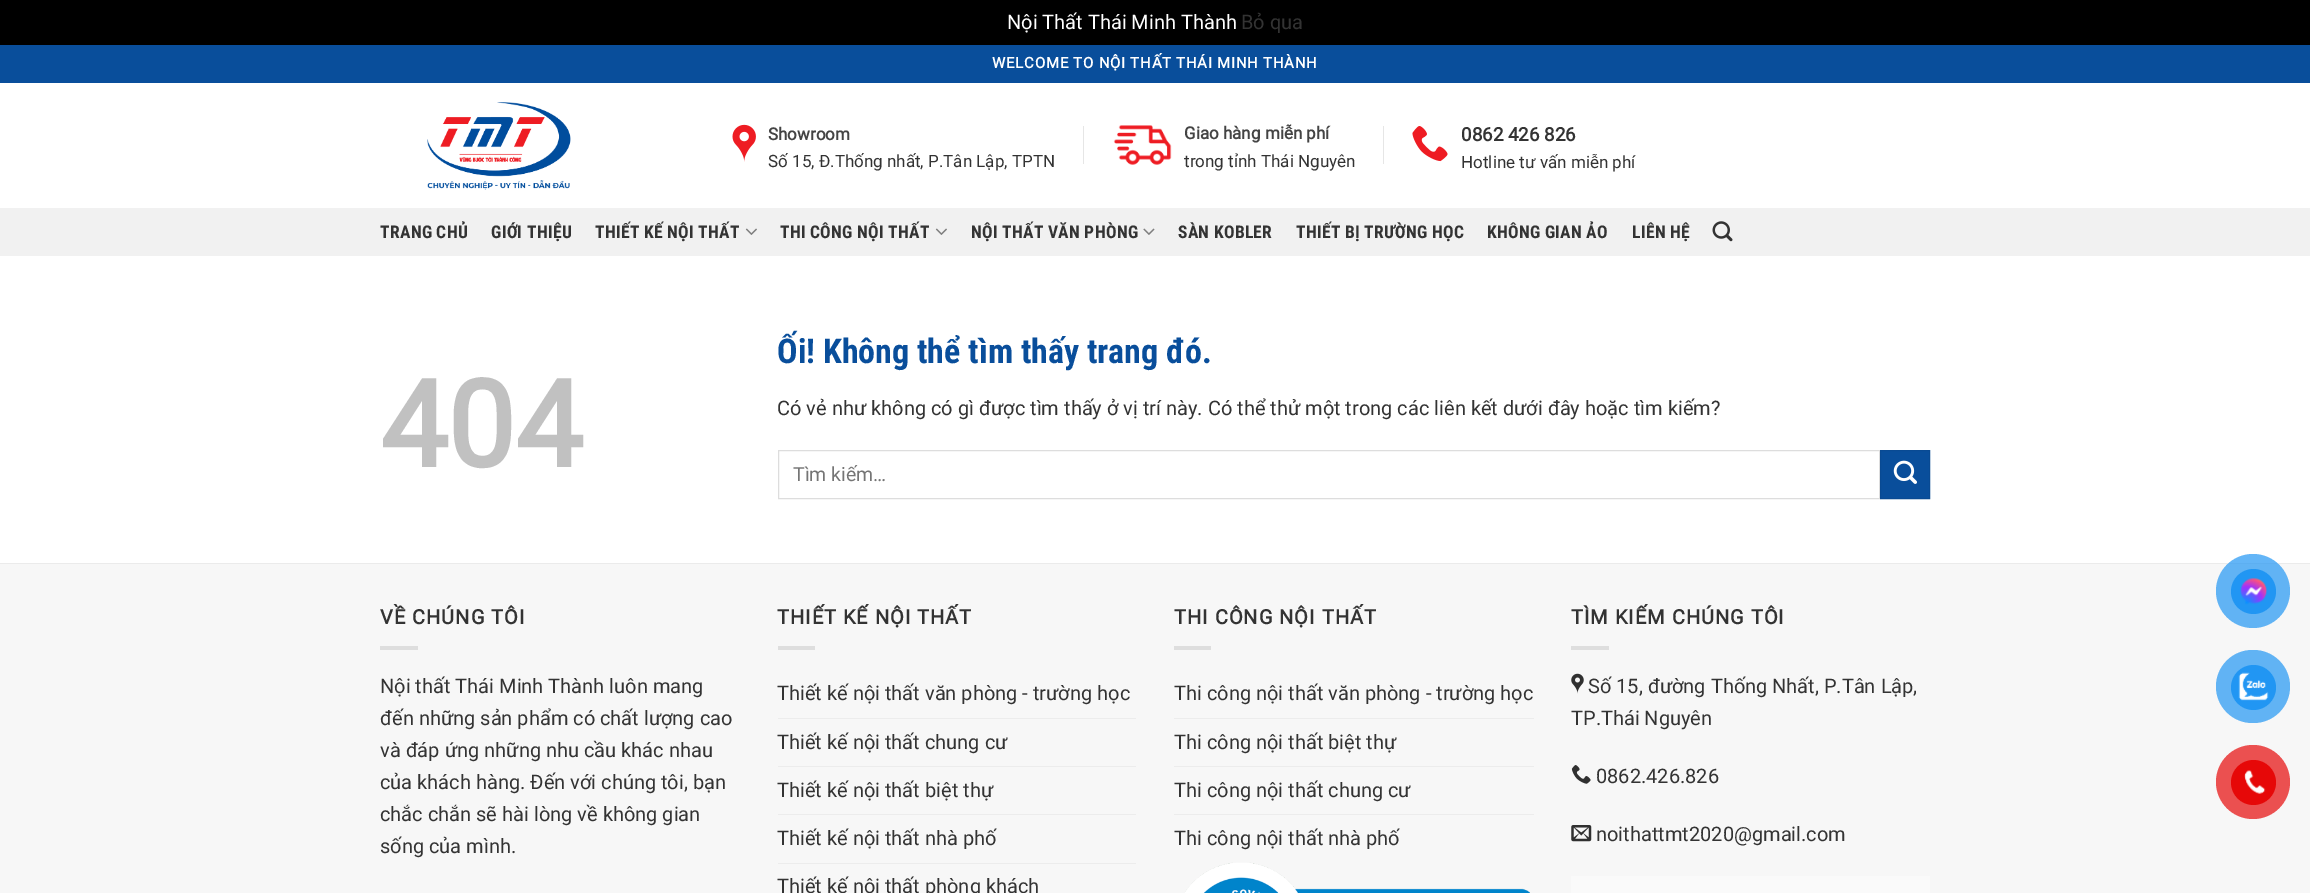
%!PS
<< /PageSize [2310 893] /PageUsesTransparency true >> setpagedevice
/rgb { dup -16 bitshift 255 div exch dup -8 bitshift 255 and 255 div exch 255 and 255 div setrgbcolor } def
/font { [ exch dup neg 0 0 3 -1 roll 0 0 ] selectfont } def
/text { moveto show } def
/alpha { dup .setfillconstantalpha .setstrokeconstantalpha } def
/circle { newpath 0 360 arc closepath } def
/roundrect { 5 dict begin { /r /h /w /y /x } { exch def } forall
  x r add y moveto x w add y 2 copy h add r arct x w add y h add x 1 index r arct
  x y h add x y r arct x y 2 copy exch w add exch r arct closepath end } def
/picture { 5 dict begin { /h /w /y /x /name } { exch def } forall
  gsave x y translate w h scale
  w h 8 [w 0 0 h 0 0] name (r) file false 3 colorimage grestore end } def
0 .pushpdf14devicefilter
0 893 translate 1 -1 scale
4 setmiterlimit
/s1 { /Roboto-Regular 20 font 16#FFFFFF rgb } def
/s2 { /Roboto-Regular 20 font 16#333333 rgb } def
/s3 { /Roboto-Bold 17 font 16#444444 rgb } def
/s4 { /Roboto-Regular 17 font 16#333333 rgb } def
/s5 { /Roboto-Bold 18.75 font 16#333333 rgb } def
/s6 { /Roboto-Bold 120 font 16#C1C1C1 rgb } def
/s7 { /RobotoCondensed-Bold 34 font 16#094E9B rgb } def
/s8 { /Roboto-Regular 19.5 font 16#757575 rgb } def
16#000000 rgb
0 0 2310 893 rectfill
s1
(Nội Thất Thái Minh Thành) 1007 29 text
s2
(Bỏ qua) 1241 29 text
16#FFFFFF rgb
0 83 2310 480 rectfill
16#094E9B rgb
0 45 2310 38 rectfill
/Roboto-Bold 15 font
16#FFFFFF rgb
992 68 moveto 0.75 0 (WELCOME TO NỘI THẤT THÁI MINH THÀNH) ashow
(pic1.raw) 427 102 144 88 picture
(pic2.raw) 732 124 24 38 picture
s3
(Showroom) 768 140 text
s4
(Số 15, Đ.Thống nhất, P.Tân Lập, TPTN) 768 167 text
16#E6E6E6 rgb
1083 126 1 38 rectfill
(pic3.raw) 1113 125 59 40 picture
s3
(Giao hàng miễn phí) 1184 139 text
s4
(trong tỉnh Thái Nguyên) 1184 167 text
16#E6E6E6 rgb
1383 126 1 38 rectfill
(pic4.raw) 1412 126 36 36 picture
s5
(0862 426 826) 1461 141 text
s4
(Hotline tư vấn miễn phí) 1461 168 text
16#F1F1F1 rgb
0 208 2310 48 rectfill
/RobotoCondensed-Bold 17.5 font
16#333333 rgb
380 238 moveto 0.3 0 (TRANG CHỦ) ashow
491 238 moveto 0.3 0 (GIỚI THIỆU) ashow
595 238 moveto 0.3 0 (THIẾT KẾ NỘI THẤT) ashow
(pic5.raw) 745 228 12 7 picture
780 238 moveto 0.3 0 (THI CÔNG NỘI THẤT) ashow
(pic5.raw) 935 228 12 7 picture
971 238 moveto 0.3 0 (NỘI THẤT VĂN PHÒNG) ashow
(pic6.raw) 1143 228 12 7 picture
1178 238 moveto 0.3 0 (SÀN KOBLER) ashow
1296 238 moveto 0.3 0 (THIẾT BỊ TRƯỜNG HỌC) ashow
1487 238 moveto 0.3 0 (KHÔNG GIAN ẢO) ashow
1632 238 moveto 0.3 0 (LIÊN HỆ) ashow
(pic7.raw) 1712 221 21 21 picture
s6
(404) 380 467 text
s7
(Ối! Không thể tìm thấy trang đó.) 777 363 text
s2
(Có vẻ như không có gì được tìm thấy ở vị trí này. Có thể thử một trong các liên kết dưới đây hoặc tìm kiếm?) 777 415 text
16#DDDDDD rgb
778.5 450.5 1101 48 rectstroke
s8
(Tìm kiếm…) 793 481 text
16#094E9B rgb
1880.5 450.5 moveto 1929.5 450.5 lineto 1929.5 498.5 lineto 1880.5 498.5 lineto closepath gsave fill grestore
16#094A93 rgb
stroke
(pic8.raw) 1893 460 24 24 picture
16#F7F7F7 rgb
0 564 2310 329 rectfill
16#EBEBEB rgb
0 563 2310 1 rectfill
/Roboto-Bold 20 font
16#333333 rgb
380 624 moveto 1 0 (VỀ CHÚNG TÔI) ashow
16#DEDEDE rgb
380 646 38 4 rectfill
s2
(Nội thất Thái Minh Thành luôn mang) 380 693 text
(đến những sản phẩm có chất lượng cao) 380 725 text
(và đáp ứng những nhu cầu khác nhau) 380 757 text
(của khách hàng. Đến với chúng tôi, bạn) 380 789 text
(chắc chắn sẽ hài lòng về không gian) 380 821 text
(sống của mình.) 380 853 text
/Roboto-Bold 20 font
777 624 moveto 1 0 (THIẾT KẾ NỘI THẤT) ashow
16#DEDEDE rgb
778 646 37 4 rectfill
s2
(Thiết kế nội thất văn phòng - trường học) 777 700 text
16#ECECEC rgb
778 718 358 1 rectfill
s2
(Thiết kế nội thất chung cư) 777 749 text
16#ECECEC rgb
778 766 358 1 rectfill
s2
(Thiết kế nội thất biệt thự) 777 797 text
16#ECECEC rgb
778 814 358 1 rectfill
s2
(Thiết kế nội thất nhà phố) 777 845 text
16#ECECEC rgb
778 863 358 1 rectfill
s2
(Thiết kế nội thất phòng khách) 777 893 text
/Roboto-Bold 20 font
1174 624 moveto 1 0 (THI CÔNG NỘI THẤT) ashow
16#DEDEDE rgb
1174 646 37 4 rectfill
s2
(Thi công nội thất văn phòng - trường học) 1174 700 text
16#ECECEC rgb
1174 718 360 1 rectfill
s2
(Thi công nội thất biệt thự) 1174 749 text
16#ECECEC rgb
1174 766 360 1 rectfill
s2
(Thi công nội thất chung cư) 1174 797 text
16#ECECEC rgb
1174 814 360 1 rectfill
s2
(Thi công nội thất nhà phố) 1174 845 text
(pic9.raw) 1185 862 345 31 picture
/Roboto-Bold 20 font
1571 624 moveto 1 0 (TÌM KIẾM CHÚNG TÔI) ashow
16#DEDEDE rgb
1571 646 38 4 rectfill
(pic10.raw) 1571 673 13 21 picture
s2
(Số 15, đường Thống Nhất, P.Tân Lập,) 1588 693 text
(TP.Thái Nguyên) 1571 725 text
(pic11.raw) 1571 765 20 19 picture
(0862.426.826) 1596 783 text
(pic12.raw) 1571 825 21 17 picture
(noithattmt2020@gmail.com) 1596 841 text
16#FAFAFA rgb
1571 876 359 17 rectfill
0.7 alpha
16#2196F3 rgb
2253 591 37 circle fill
1 alpha
2253.5 591.5 22.5 circle fill
(pic13.raw) 2240 577 28 28 picture
16#61B3F4 rgb
2216 650 74 73 36.5 roundrect fill
16#2196F3 rgb
2253.5 687.5 22.5 circle fill
(pic14.raw) 2238 672 31 29 picture
16#EB5050 rgb
2253 782 37 circle fill
16#E60808 rgb
2253.5 782.5 22.5 circle fill
(pic15.raw) 2244 770 22 24 picture
.poppdf14devicefilter showpage
